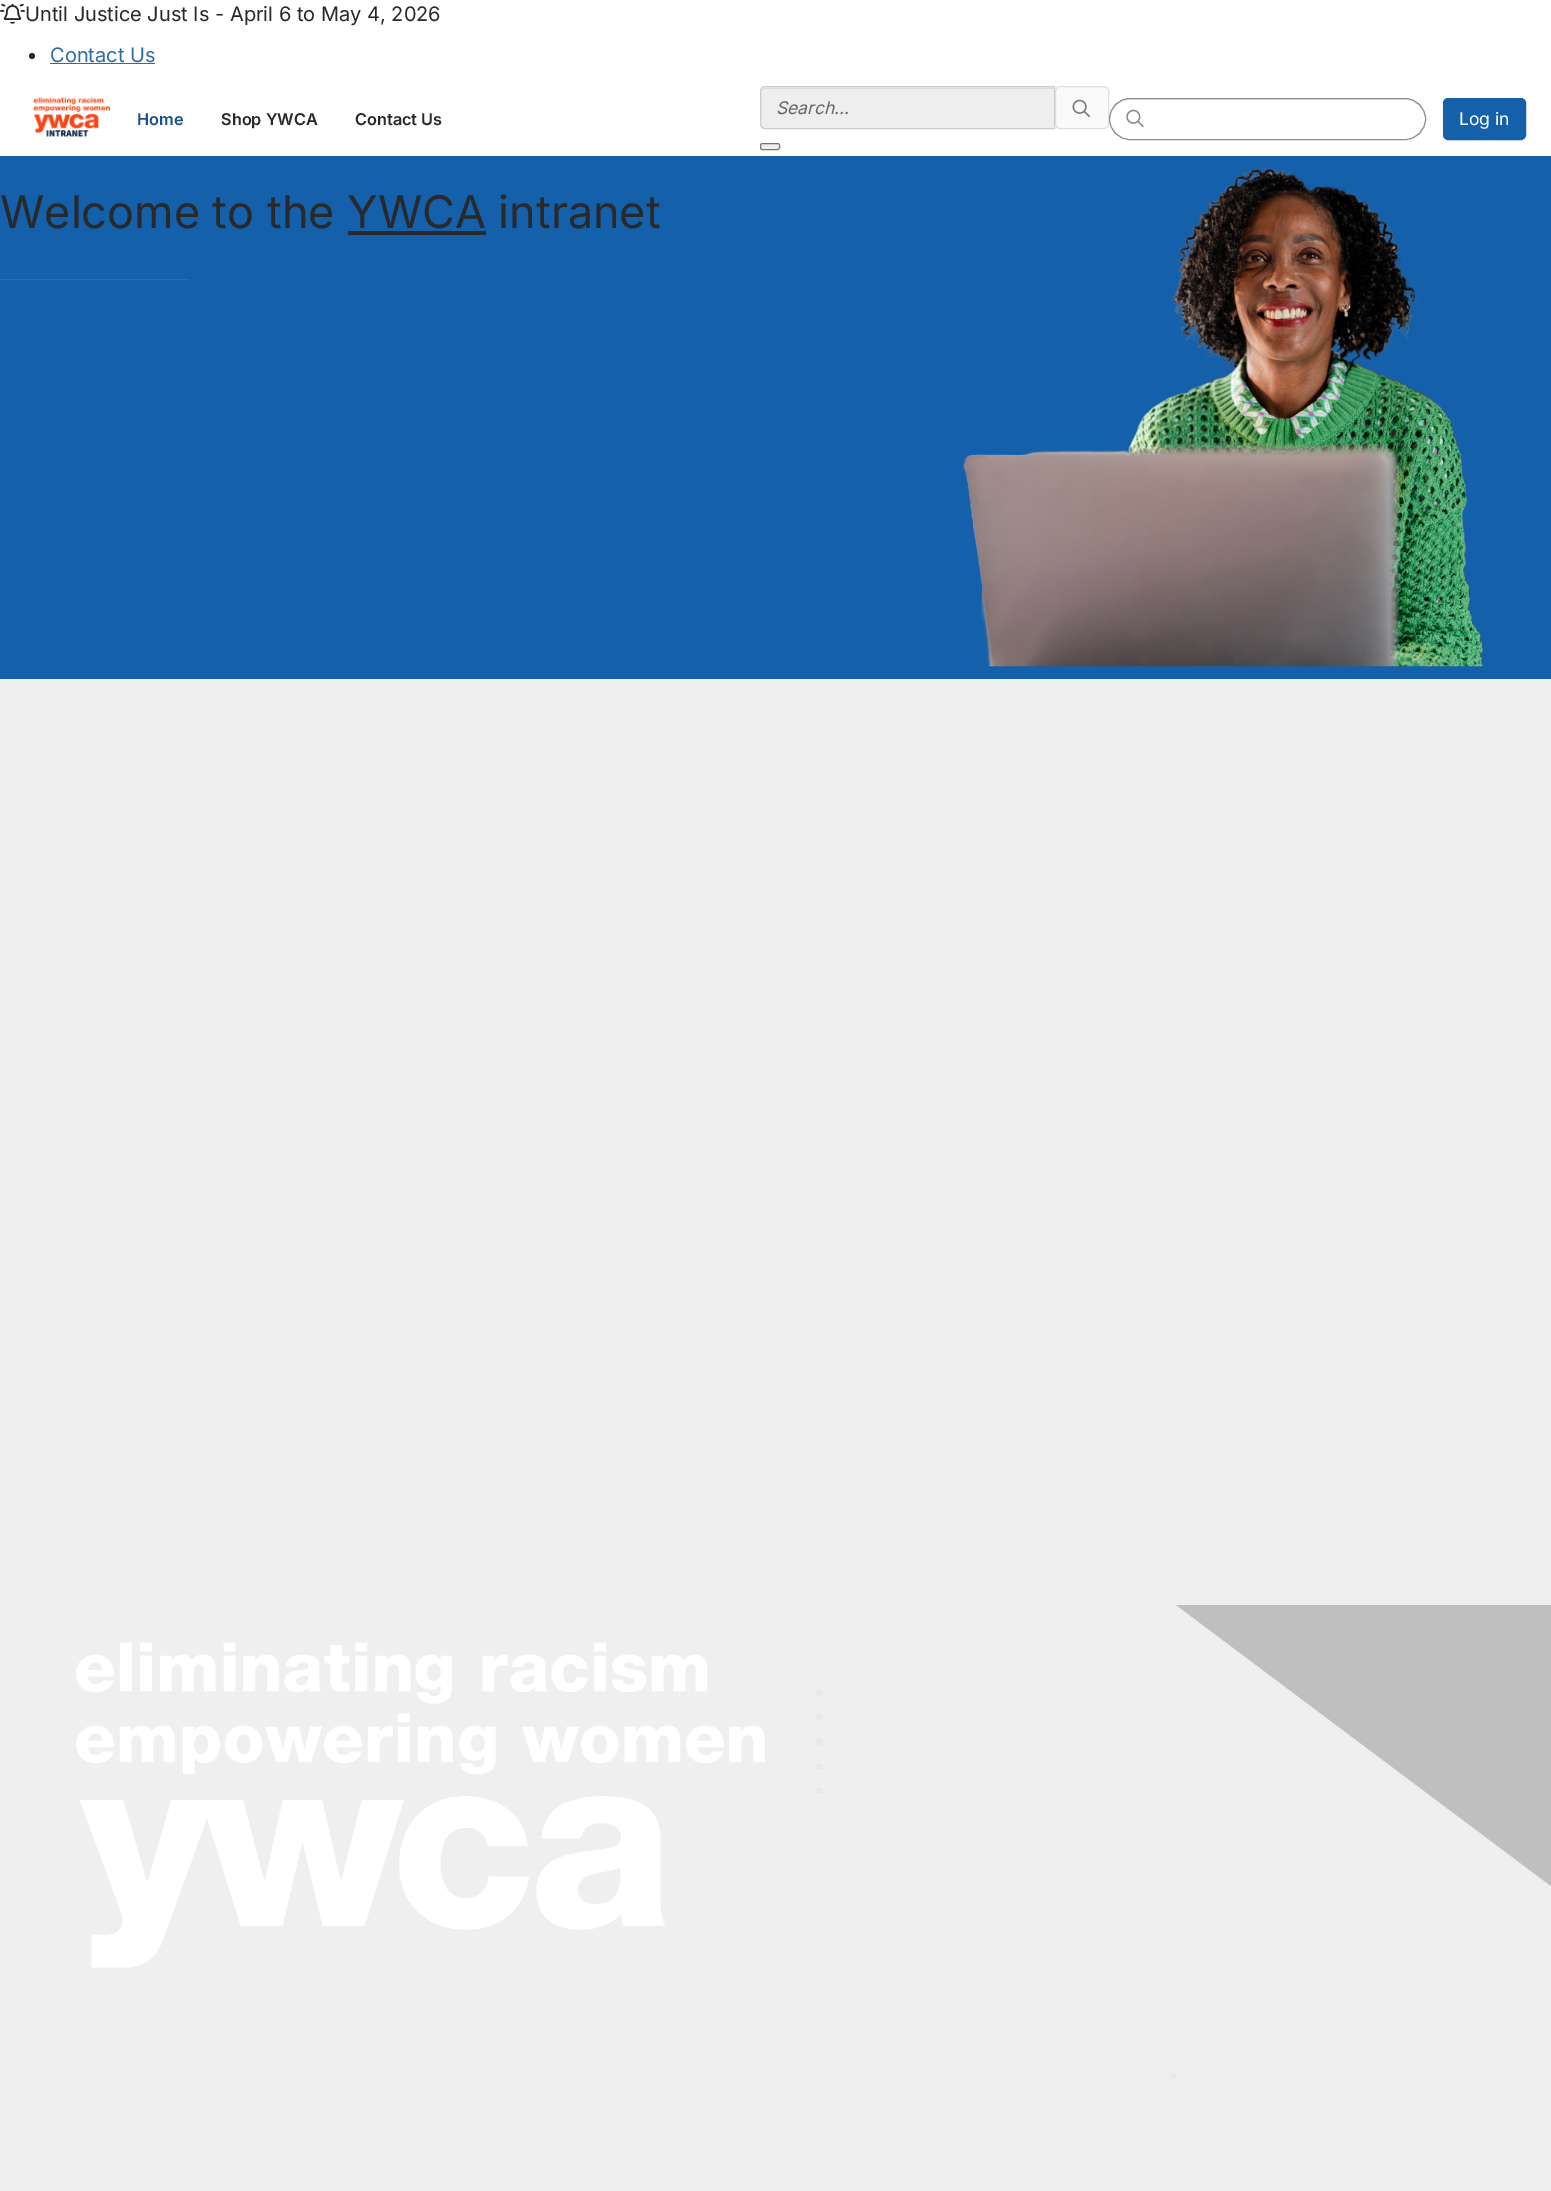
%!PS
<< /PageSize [1551 2191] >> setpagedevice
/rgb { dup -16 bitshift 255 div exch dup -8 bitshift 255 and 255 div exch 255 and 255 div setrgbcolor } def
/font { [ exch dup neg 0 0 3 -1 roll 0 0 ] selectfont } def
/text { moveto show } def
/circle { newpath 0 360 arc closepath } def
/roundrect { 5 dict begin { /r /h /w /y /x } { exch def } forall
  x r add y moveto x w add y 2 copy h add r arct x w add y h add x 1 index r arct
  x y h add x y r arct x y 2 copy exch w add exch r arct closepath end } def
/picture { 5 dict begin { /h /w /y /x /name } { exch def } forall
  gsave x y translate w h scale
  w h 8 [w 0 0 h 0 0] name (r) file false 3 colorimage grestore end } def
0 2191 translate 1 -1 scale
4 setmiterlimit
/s1 { /Inter-Regular 20 font 16#292929 rgb } def
/s2 { /Inter-Regular 20 font 16#2E6DA4 rgb } def
/s3 { /Inter-SemiBold 16.25 font 16#19528A rgb } def
/s4 { /Inter-SemiBold 16.25 font 16#292929 rgb } def
/s5 { /Inter-Italic 17.5 font 16#666666 rgb } def
/s6 { /Inter-Regular 17.5 font 16#FFFFFF rgb } def
/s7 { /Inter-Regular 45 font 16#292929 rgb } def
16#EFEFEF rgb
0 0 1551 2191 rectfill
16#FFFFFF rgb
0 0 1551 156 rectfill
(pic1.raw) 0 3 25 21 picture
s1
(Until Justice Just Is - April 6 to May 4, 2026) 25 21 text
32 56 3 circle fill
s2
(Contact Us) 50 62 text
50 63 105 1 rectfill
(pic2.raw) 33 97 77 40 picture
s3
(Home) 137 125 text
s4
(Shop YWCA) 221 125 text
(Contact Us) 355 125 text
16#EEEEEE rgb
765 86 moveto 1055 86 lineto 1055 129 lineto 765 129 lineto 762 129 760 127 760 124 curveto 760 91 lineto 760 88 762 86 765 86 curveto closepath fill
16#DCDCDC rgb
765 89 moveto 1054 89 lineto 1054 88 lineto 765 88 lineto 763 88 761 90 761 92 curveto 761 90 763 89 765 89 curveto closepath fill
16#CCCCCC rgb
765 86.5 moveto 1054.5 86.5 lineto 1054.5 128.5 lineto 765 128.5 lineto 762.5 128.5 760.5 126.5 760.5 124 curveto 760.5 91 lineto 760.5 88.5 762.5 86.5 765 86.5 curveto closepath stroke
s5
(Search...) 776 114 text
16#FAFAFA rgb
1055.5 86.5 53 42 4.5 roundrect gsave fill grestore
16#DEDEDE rgb
stroke
(pic3.raw) 1072 99 18 19 picture
16#EFEFEF rgb
760.5 143.5 19 6 2 roundrect gsave fill grestore
16#767676 rgb
stroke
16#ECECEC rgb
1130 100 moveto 1405 100 lineto 1416 100 1425 109 1425 120 curveto 1425 108 1416 99 1405 99 curveto 1130 99 lineto 1119 99 1110 108 1110 120 curveto 1110 109 1119 100 1130 100 curveto closepath fill
16#8C8C8C rgb
1109.5 98.5 316 41 20.5 roundrect stroke
(pic4.raw) 1126 109 18 19 picture
16#1460AA rgb
1443.5 98.5 82 41 4.5 roundrect gsave fill grestore
stroke
s6
(Log in) 1459 125 text
16#1460AA rgb
0 156 1551 523 rectfill
s7
(Welcome to the YWCA intranet) 0 228 text
348 231 138 4 rectfill
16#2E6DA4 rgb
0 279 189 1 rectfill
(pic5.raw) 963 167 521 500 picture
(pic6.raw) 76 1642 689 326 picture
16#E5E9EB rgb
816 1690 7 6 3 roundrect fill
816 1714 7 6 3 roundrect fill
816 1739 7 6 3 roundrect fill
816 1764 7 6 3 roundrect fill
816 1788 7 6 3 roundrect fill
1173 2076 3 circle fill
16#BFBFBF rgb
1551 1605 moveto 1551 1886 lineto 1176 1605 lineto closepath fill
showpage
